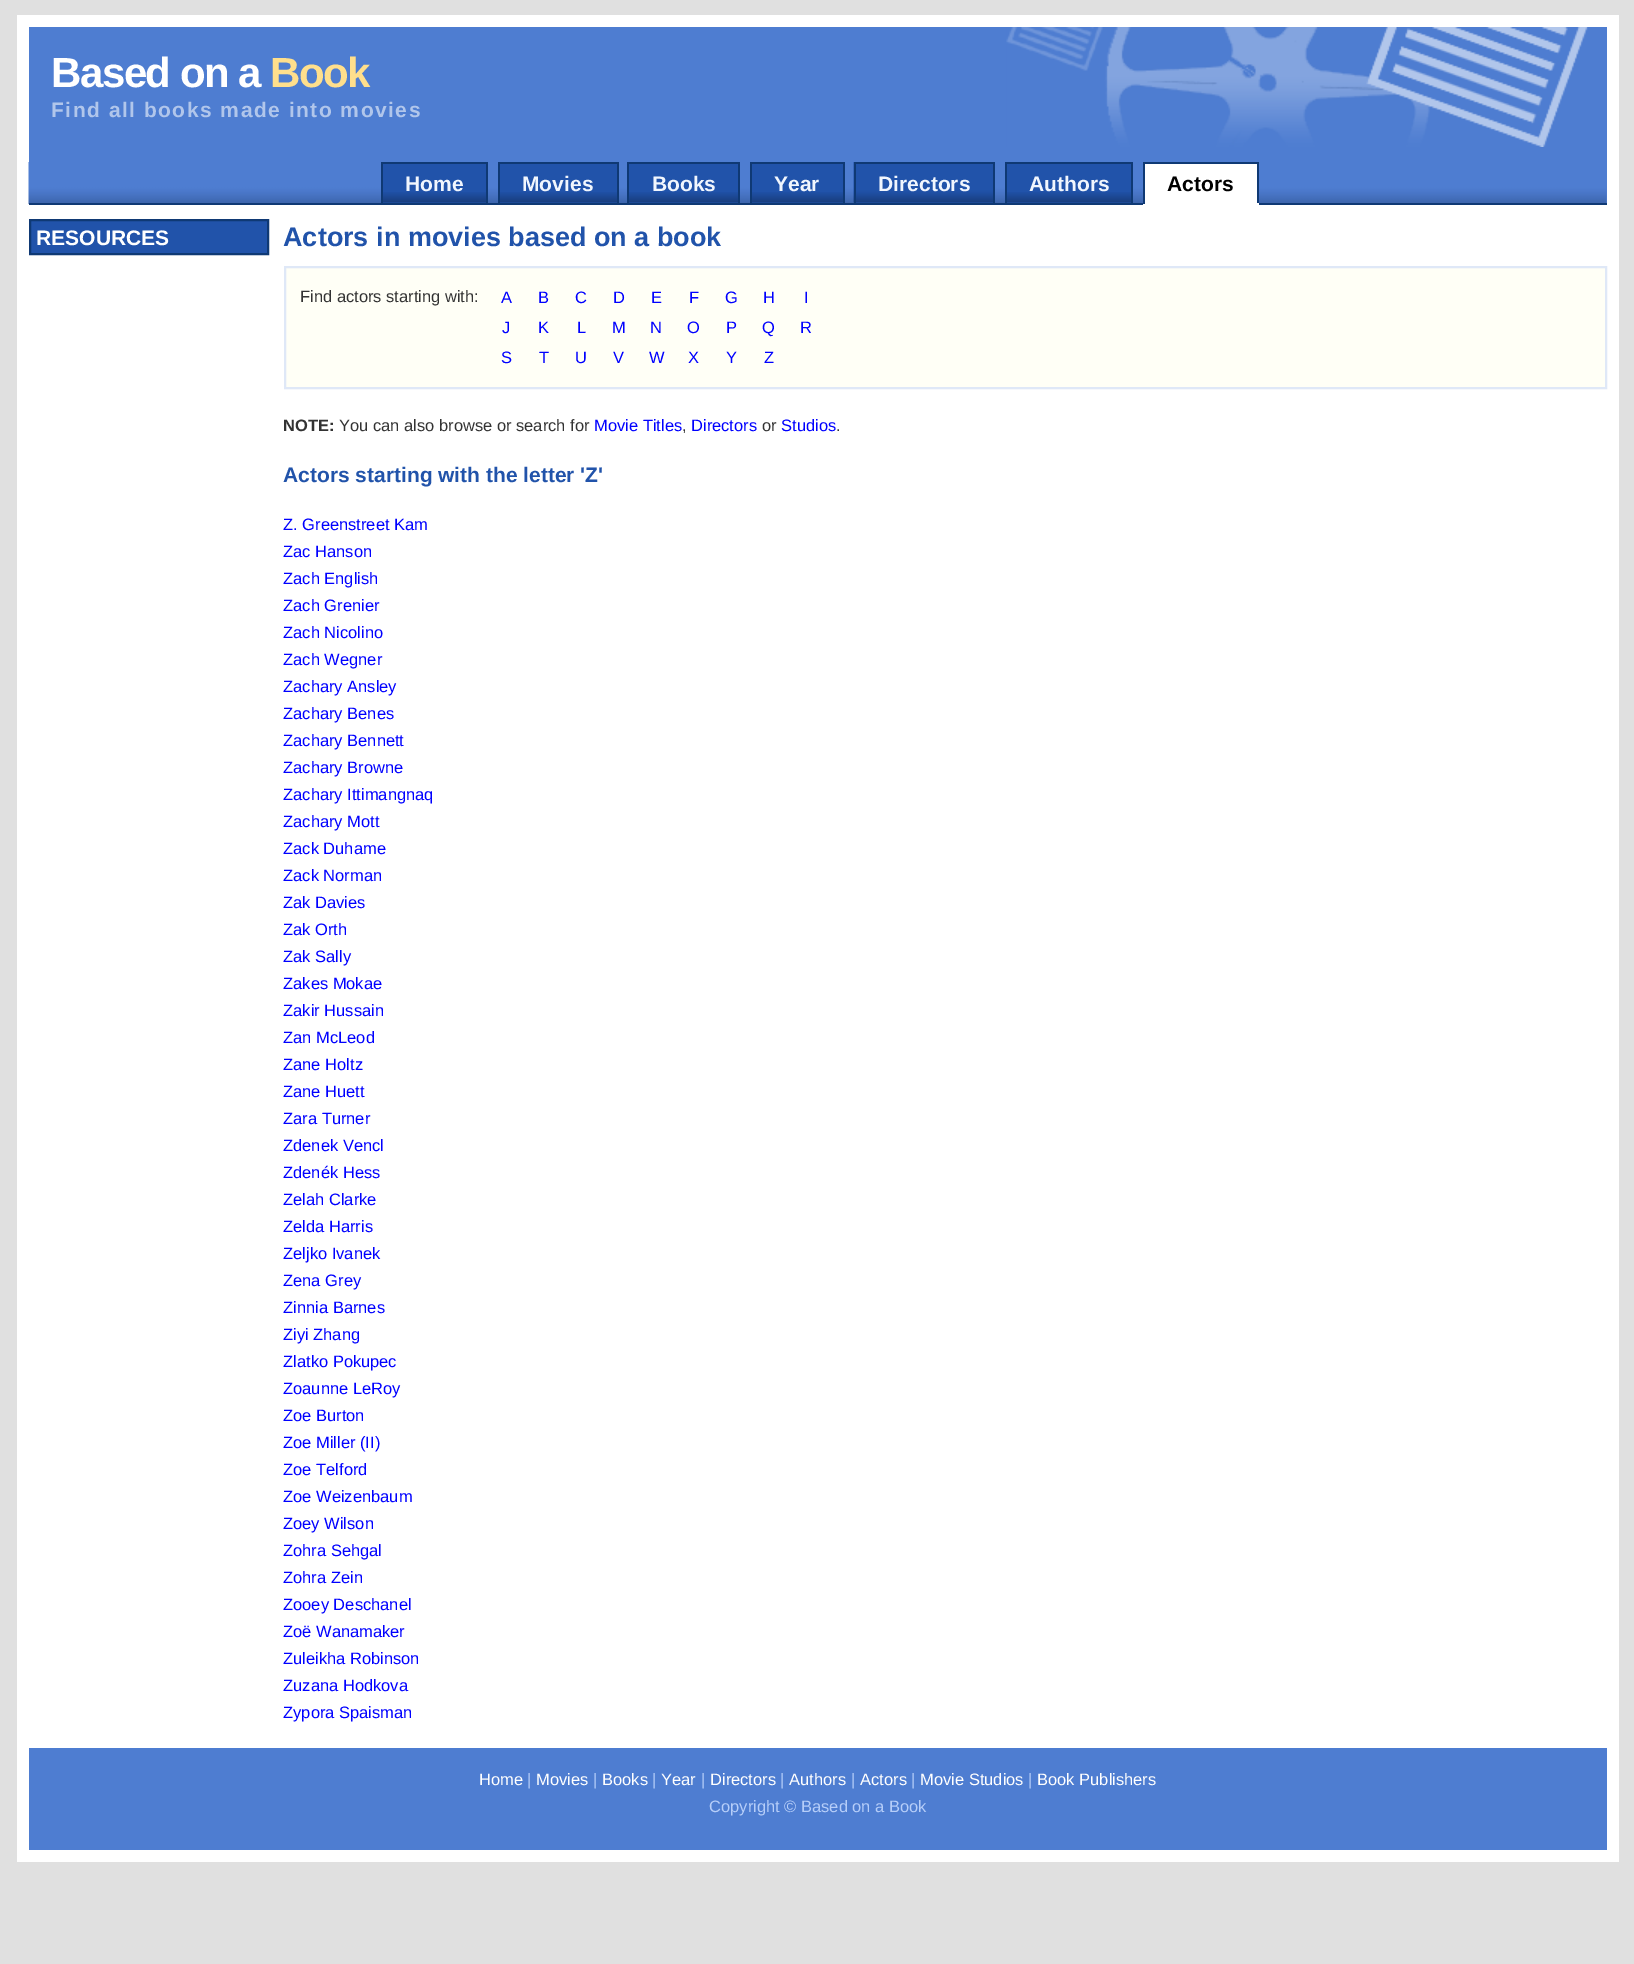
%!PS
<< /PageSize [1634 1964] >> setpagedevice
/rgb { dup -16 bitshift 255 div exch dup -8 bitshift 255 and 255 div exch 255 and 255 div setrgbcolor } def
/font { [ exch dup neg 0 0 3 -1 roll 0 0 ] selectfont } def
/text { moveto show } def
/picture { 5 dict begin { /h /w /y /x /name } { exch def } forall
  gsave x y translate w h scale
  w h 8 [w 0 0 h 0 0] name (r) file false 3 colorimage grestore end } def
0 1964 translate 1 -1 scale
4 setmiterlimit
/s1 { /LiberationSans-Bold 21 font 16#F1F6FE rgb } def
/s2 { /LiberationSans-Bold 21 font 16#000000 rgb } def
/s3 { /LiberationSans-Bold 21 font 16#FFFFFF rgb } def
/s4 { /LiberationSans-Bold 27 font 16#2153AA rgb } def
/s5 { /LiberationSans-Regular 16.5 font 16#333333 rgb } def
/s6 { /LiberationSans-Regular 16.5 font 16#0000FF rgb } def
/s7 { /LiberationSans-Bold 16.5 font 16#333333 rgb } def
/s8 { /LiberationSans-Bold 21 font 16#2153AA rgb } def
/s9 { /LiberationSans-Regular 16.5 font 16#FFFFFF rgb } def
/s10 { /LiberationSans-Regular 16.5 font 16#B6CEF9 rgb } def
16#E0E0E0 rgb
0 0 1634 1964 rectfill
16#FFFFFF rgb
17 15 1602 1847 rectfill
16#4E7DD1 rgb
29 27 1578 176 rectfill
(pic1.raw) 28 162 1579 42 picture
(pic2.raw) 1006 27 582 120 picture
/LiberationSans-Bold 42 font
16#FFFFFF rgb
51 87 moveto -1.5 0 (Based on a) ashow
16#FFDF8C rgb
270 87 moveto -1.5 0 (Book) ashow
/LiberationSans-Bold 21 font
16#B1C6EB rgb
51 117 moveto 1.5 0 (Find all books made into movies) ashow
16#0F3974 rgb
29 203 1578 2 rectfill
16#2153AA rgb
500 164 117 39 rectfill
s1
(Movies) 522 191 text
16#0F3974 rgb
498 162 120 2 rectfill
617 162 2 41 rectfill
498 162 2 41 rectfill
16#2153AA rgb
629 164 109 39 rectfill
s1
(Books) 652 191 text
16#0F3974 rgb
627 162 113 2 rectfill
738 162 2 41 rectfill
627 162 2 41 rectfill
16#2153AA rgb
856 202 137 1 rectfill
(pic3.raw) 853 162 140 41 picture
383 164 103 39 rectfill
s1
(Home) 405 191 text
16#0F3974 rgb
381 162 107 2 rectfill
486 162 2 41 rectfill
381 162 2 41 rectfill
16#2153AA rgb
752 164 91 39 rectfill
s1
(Year) 774 191 text
16#0F3974 rgb
750 162 95 2 rectfill
843 162 2 41 rectfill
750 162 2 41 rectfill
s1
(Directors) 878 191 text
16#0F3974 rgb
854 162 141 2 rectfill
993 162 2 41 rectfill
854 162 2 41 rectfill
16#2153AA rgb
1007 164 124 39 rectfill
s1
(Authors) 1029 191 text
16#0F3974 rgb
1005 162 128 2 rectfill
1131 162 2 41 rectfill
1005 162 2 41 rectfill
16#FFFFFF rgb
1145 164 112 39 rectfill
s2
(Actors) 1167 191 text
16#0F3974 rgb
1143 162 116 2 rectfill
1257 162 2 42 rectfill
16#FFFFFF rgb
1143 203 116 2 rectfill
16#0F3974 rgb
1143 162 2 42 rectfill
(pic4.raw) 383 192 103 11 picture
(pic5.raw) 500 192 117 11 picture
(pic6.raw) 629 192 109 11 picture
(pic7.raw) 752 192 91 11 picture
(pic8.raw) 1007 192 124 11 picture
16#2153AA rgb
30 220 moveto 268 220 lineto 268 254 lineto 30 254 lineto closepath gsave fill grestore
16#0F3974 rgb
2 setlinewidth
stroke
s3
(RESOURCES) 36 245 text
s4
(Actors in movies based on a book) 283 246 text
16#FFFFF6 rgb
285 267 moveto 1606 267 lineto 1606 388 lineto 285 388 lineto closepath gsave fill grestore
16#DFE8F7 rgb
stroke
s5
(Find actors starting with:) 300 302 text
s6
(A) 501 303 text
(B) 538 303 text
(C) 575 303 text
(D) 613 303 text
(E) 651 303 text
(F) 689 303 text
(G) 725 303 text
(H) 763 303 text
(I) 804 303 text
(J) 502 333 text
(K) 538 333 text
(L) 577 333 text
(M) 612 333 text
(N) 650 333 text
(O) 687 333 text
(P) 726 333 text
(Q) 762 333 text
(R) 800 333 text
(S) 501 363 text
(T) 539 363 text
(U) 575 363 text
(V) 613 363 text
(W) 649 363 text
(X) 688 363 text
(Y) 726 363 text
(Z) 764 363 text
s7
(NOTE:) 283 431 text
s5
(You can also browse or search for) 339 431 text
s6
(Movie Titles) 594 431 text
s5
(,) 682 431 text
s6
(Directors) 691 431 text
s5
(or) 762 431 text
s6
(Studios) 781 431 text
s5
(.) 836 431 text
s8
(Actors starting with the letter 'Z') 283 482 text
s6
(Z. Greenstreet Kam) 283 530 text
(Zac Hanson) 283 557 text
(Zach English) 283 584 text
(Zach Grenier) 283 611 text
(Zach Nicolino) 283 638 text
(Zach Wegner) 283 665 text
(Zachary Ansley) 283 692 text
(Zachary Benes) 283 719 text
(Zachary Bennett) 283 746 text
(Zachary Browne) 283 773 text
(Zachary Ittimangnaq) 283 800 text
(Zachary Mott) 283 827 text
(Zack Duhame) 283 854 text
(Zack Norman) 283 881 text
(Zak Davies) 283 908 text
(Zak Orth) 283 935 text
(Zak Sally) 283 962 text
(Zakes Mokae) 283 989 text
(Zakir Hussain) 283 1016 text
(Zan McLeod) 283 1043 text
(Zane Holtz) 283 1070 text
(Zane Huett) 283 1097 text
(Zara Turner) 283 1124 text
(Zdenek Vencl) 283 1151 text
(Zdenék Hess) 283 1178 text
(Zelah Clarke) 283 1205 text
(Zelda Harris) 283 1232 text
(Zeljko Ivanek) 283 1259 text
(Zena Grey) 283 1286 text
(Zinnia Barnes) 283 1313 text
(Ziyi Zhang) 283 1340 text
(Zlatko Pokupec) 283 1367 text
(Zoaunne LeRoy) 283 1394 text
(Zoe Burton) 283 1421 text
(Zoe Miller \(II\)) 283 1448 text
(Zoe Telford) 283 1475 text
(Zoe Weizenbaum) 283 1502 text
(Zoey Wilson) 283 1529 text
(Zohra Sehgal) 283 1556 text
(Zohra Zein) 283 1583 text
(Zooey Deschanel) 283 1610 text
(Zoë Wanamaker) 283 1637 text
(Zuleikha Robinson) 283 1664 text
(Zuzana Hodkova) 283 1691 text
(Zypora Spaisman) 283 1718 text
16#4E7DD1 rgb
29 1748 1578 102 rectfill
s9
(Home) 479 1785 text
s10
(|) 527 1785 text
s9
(Movies) 536 1785 text
s10
(|) 593 1785 text
s9
(Books) 602 1785 text
s10
(|) 652 1785 text
s9
(Year) 661 1785 text
s10
(|) 701 1785 text
s9
(Directors) 710 1785 text
s10
(|) 780 1785 text
s9
(Authors) 789 1785 text
s10
(|) 851 1785 text
s9
(Actors) 860 1785 text
s10
(|) 911 1785 text
s9
(Movie Studios) 920 1785 text
s10
(|) 1028 1785 text
s9
(Book Publishers) 1037 1785 text
s10
(Copyright © Based on a Book) 709 1812 text
showpage
